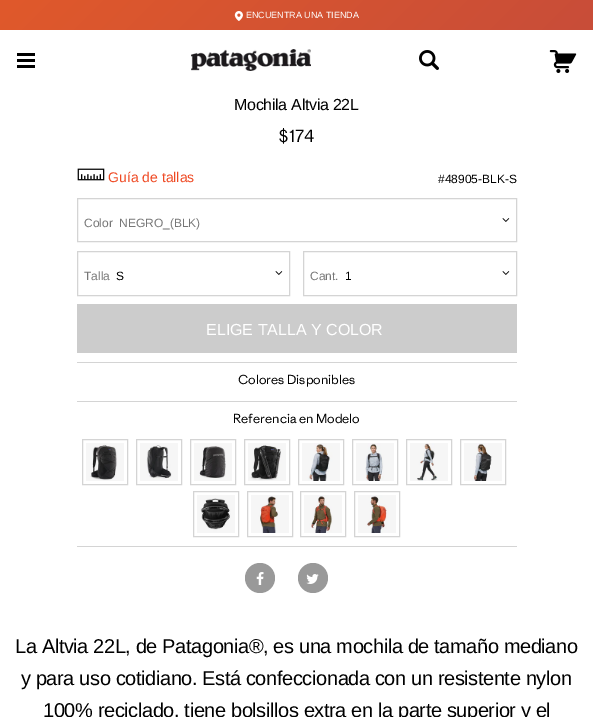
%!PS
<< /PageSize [593 717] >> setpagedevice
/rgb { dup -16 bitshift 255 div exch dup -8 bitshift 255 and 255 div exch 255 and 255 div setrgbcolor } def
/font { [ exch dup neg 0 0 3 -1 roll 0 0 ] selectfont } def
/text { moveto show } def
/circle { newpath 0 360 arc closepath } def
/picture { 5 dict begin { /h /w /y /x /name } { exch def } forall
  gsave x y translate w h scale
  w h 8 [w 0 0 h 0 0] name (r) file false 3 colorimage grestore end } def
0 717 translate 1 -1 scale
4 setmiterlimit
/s1 { /LiberationSans-Regular 9 font 16#FFFFFF rgb } def
/s2 { /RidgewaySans-Light 16 font 16#000000 rgb } def
/s3 { /LiberationSans-Regular 14 font 16#EF4923 rgb } def
/s4 { /LiberationSans-Regular 12 font 16#000000 rgb } def
/s5 { /LiberationSans-Regular 12 font 16#777777 rgb } def
/s6 { /LiberationSans-Regular 16 font 16#FFFFFF rgb } def
/s7 { /RidgewaySans-Light 12 font 16#000000 rgb } def
16#FFFFFF rgb
0 0 593 717 rectfill
gsave 0 0 moveto 593 0 lineto 593 30 lineto 0 30 lineto closepath clip newpath
<< /ShadingType 2 /ColorSpace /DeviceRGB /Coords [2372 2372 0 0] /Extend [true true] /Function << /FunctionType 2 /Domain [0 1] /C0 [0.169 0 0.588] /C1 [0.878 0.349 0.169] /N 1 >> >> shfill grestore
(pic1.raw) 234 11 9 10 picture
s1
(ENCUENTRA UNA TIENDA) 246 18 text
16#000000 rgb
17 53 18 3 rectfill
17 59 18 3 rectfill
17 65 18 3 rectfill
(pic2.raw) 191 49 120 22 picture
(pic3.raw) 419 50 20 20 picture
(pic4.raw) 549 50 28 23 picture
/LiberationSans-Regular 16 font
234 110 moveto -0.3 0 (Mochila Altvia 22L) ashow
s2
($174) 278 142 text
(pic5.raw) 77 168 28 13 picture
s3
(Guía de tallas) 108 182 text
s4
(#48905-BLK-S) 438 183 text
16#D4D4D4 rgb
77.5 198.5 439 43 rectstroke
s5
(Color) 84 227 text
(NEGRO_\(BLK\)) 119 227 text
(pic6.raw) 502 218 8 4 picture
16#D4D4D4 rgb
77.5 251.5 212 44 rectstroke
s5
(Talla) 84 280 text
s4
(S) 116 280 text
(pic6.raw) 275 271 8 4 picture
16#D4D4D4 rgb
303.5 251.5 213 44 rectstroke
s5
(Cant.) 310 280 text
s4
(1) 345 280 text
(pic6.raw) 502 271 8 4 picture
16#CCCCCC rgb
77 304 440 49 rectfill
s6
(ELIGE TALLA Y COLOR) 206 335 text
16#D4D4D4 rgb
77 362 440 1 rectfill
s7
(Colores Disponibles) 238 384 text
16#D4D4D4 rgb
77 401 440 1 rectfill
s7
(Referencia en Modelo) 233 423 text
16#D4D4D4 rgb
82.5 439.5 45 45 rectstroke
(pic7.raw) 86 443 38 38 picture
136.5 439.5 45 45 rectstroke
(pic8.raw) 140 443 38 38 picture
190.5 439.5 45 45 rectstroke
(pic9.raw) 194 443 38 38 picture
244.5 439.5 45 45 rectstroke
(pic10.raw) 248 443 38 38 picture
298.5 439.5 45 45 rectstroke
(pic11.raw) 302 443 38 38 picture
352.5 439.5 45 45 rectstroke
(pic12.raw) 356 443 38 38 picture
406.5 439.5 45 45 rectstroke
(pic13.raw) 410 443 38 38 picture
460.5 439.5 45 45 rectstroke
(pic14.raw) 464 443 38 38 picture
193.5 491.5 45 45 rectstroke
(pic15.raw) 197 495 38 38 picture
247.5 491.5 45 45 rectstroke
(pic16.raw) 251 495 38 38 picture
300.5 491.5 45 45 rectstroke
(pic17.raw) 304 495 38 38 picture
354.5 491.5 45 45 rectstroke
(pic18.raw) 358 495 38 38 picture
77 546 440 1 rectfill
16#999999 rgb
260 578 15 circle fill
(pic19.raw) 256 572 8 13 picture
313 578 15 circle fill
(pic20.raw) 306 574 13 10 picture
/LiberationSans-Regular 20 font
16#000000 rgb
15 653 moveto -0.4 0 (La Altvia 22L, de Patagonia®, es una mochila de tamaño mediano) ashow
21 685 moveto -0.4 0 (y para uso cotidiano. Está confeccionada con un resistente nylon) ashow
43 717 moveto -0.4 0 (100% reciclado, tiene bolsillos extra en la parte superior y el) ashow
showpage
